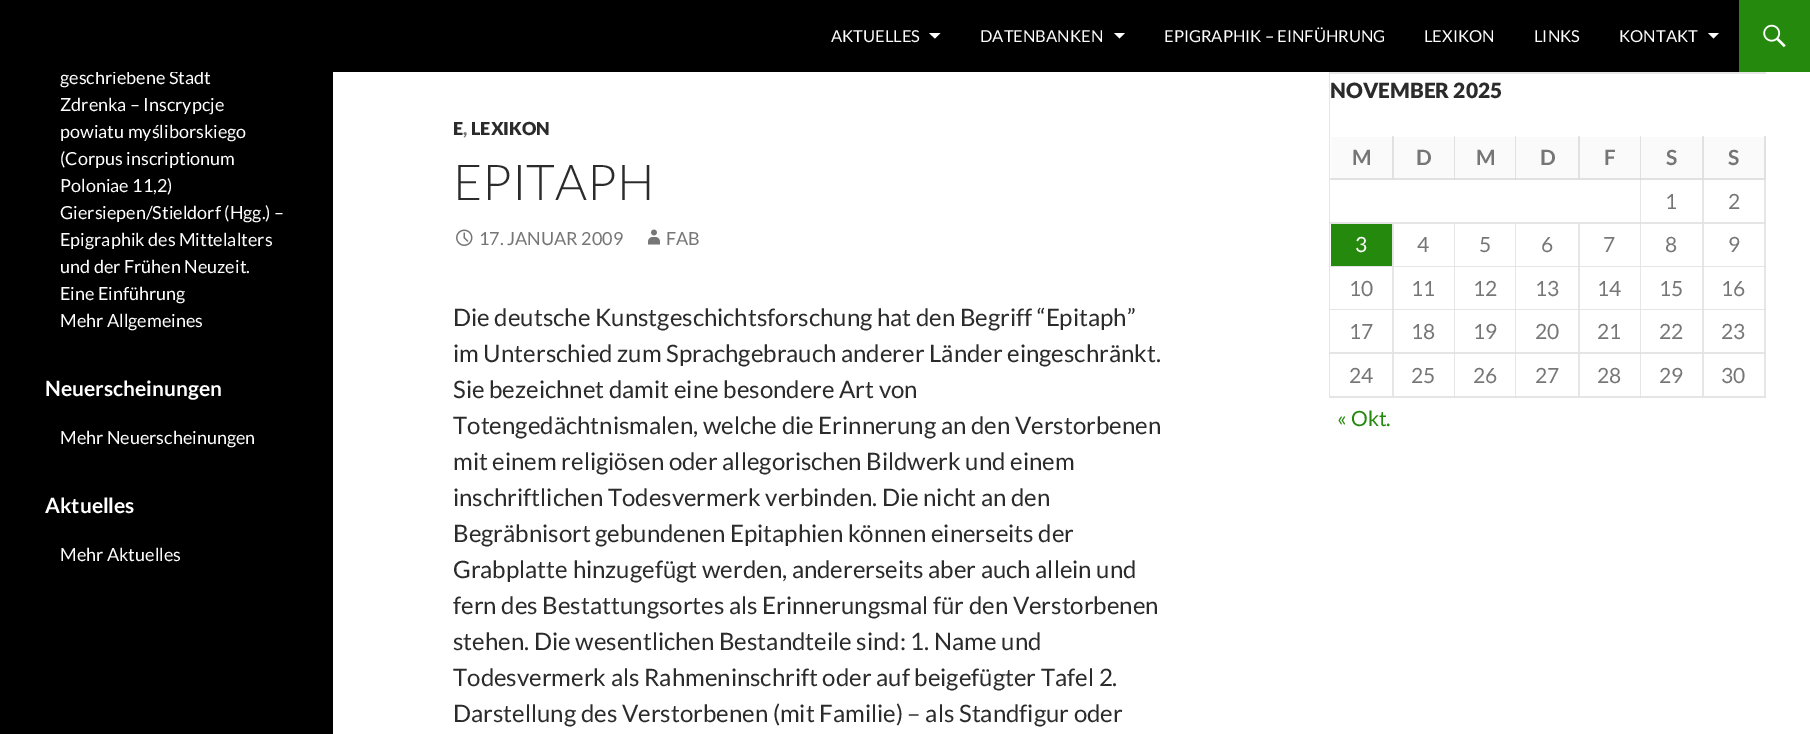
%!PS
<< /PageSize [1810 734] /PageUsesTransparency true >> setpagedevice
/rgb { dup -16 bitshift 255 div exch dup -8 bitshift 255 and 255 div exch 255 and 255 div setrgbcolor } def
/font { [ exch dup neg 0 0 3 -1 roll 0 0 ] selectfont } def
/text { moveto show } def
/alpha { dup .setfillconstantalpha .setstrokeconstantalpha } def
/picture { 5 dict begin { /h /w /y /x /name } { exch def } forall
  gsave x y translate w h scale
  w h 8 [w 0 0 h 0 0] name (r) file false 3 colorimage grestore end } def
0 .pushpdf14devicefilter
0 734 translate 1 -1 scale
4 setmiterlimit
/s1 { /Lato-Regular 18 font 16#FFFFFF rgb } def
/s2 { /Lato-Regular 16.5 font 16#FFFFFF rgb } def
/s3 { /Lato-Bold 21 font 16#FFFFFF rgb } def
/s4 { /Lato-Black 18 font 16#2B2B2B rgb } def
/s5 { /Lato-Black 18 font 16#767676 rgb } def
/s6 { /Lato-Light 49.5 font 16#2B2B2B rgb } def
/s7 { /Lato-Regular 18 font 16#767676 rgb } def
/s8 { /Lato-Regular 24 font 16#2B2B2B rgb } def
/s9 { /Lato-Black 21 font 16#2B2B2B rgb } def
/s10 { /Lato-Bold 21 font 16#767676 rgb } def
/s11 { /Lato-Regular 21 font 16#767676 rgb } def
/s12 { /Lato-Regular 21 font 16#FFFFFF rgb } def
/s13 { /Lato-Regular 21 font 16#24890D rgb } def
16#FFFFFF rgb
0 0 1810 734 rectfill
16#000000 rgb
0 72 333 662 rectfill
s1
(geschriebene Stadt) 60 84 text
16#000000 rgb
0 0 1739 72 rectfill
s2
(AKTUELLES) 831 42 text
929 33 moveto 935 38.5 lineto 940.5 33 lineto closepath fill
(DATENBANKEN) 980 42 text
1114 33 moveto 1119.5 38.5 lineto 1125 33 lineto closepath fill
(EPIGRAPHIK – EINFÜHRUNG) 1164 42 text
(LEXIKON) 1424 42 text
(LINKS) 1534 42 text
(KONTAKT) 1619 42 text
1708 33 moveto 1713.5 38.5 lineto 1719 33 lineto closepath fill
16#24890D rgb
1739 0 71 72 rectfill
(pic1.raw) 1763 24 23 24 picture
s1
(Zdrenka – Inscrypcje) 60 111 text
(powiatu myśliborskiego) 60 138 text
(\(Corpus inscriptionum) 60 165 text
(Poloniae 11,2\)) 60 192 text
(Giersiepen/Stieldorf \(Hgg.\) –) 60 219 text
(Epigraphik des Mittelalters) 60 246 text
(und der Frühen Neuzeit.) 60 273 text
(Eine Einführung) 60 300 text
(Mehr Allgemeines) 60 327 text
s3
(Neuerscheinungen) 45 396 text
s1
(Mehr Neuerscheinungen) 60 444 text
s3
(Aktuelles) 45 513 text
s1
(Mehr Aktuelles) 60 561 text
s4
(E) 453 135 text
s5
(,) 463 135 text
s4
(LEXIKON) 471 135 text
s6
(EPITAPH) 453 200 text
(pic2.raw) 456 229 17 17 picture
s7
(17. JANUAR 2009) 479 245 text
(pic3.raw) 648 229 12 16 picture
(FAB) 666 245 text
s8
(Die deutsche Kunstgeschichtsforschung hat den Begriff “Epitaph”) 453 326 text
(im Unterschied zum Sprachgebrauch anderer Länder eingeschränkt.) 453 362 text
(Sie bezeichnet damit eine besondere Art von) 453 398 text
(Totengedächtnismalen, welche die Erinnerung an den Verstorbenen) 453 434 text
(mit einem religiösen oder allegorischen Bildwerk und einem) 453 470 text
(inschriftlichen Todesvermerk verbinden. Die nicht an den) 453 506 text
(Begräbnisort gebundenen Epitaphien können einerseits der) 453 542 text
(Grabplatte hinzugefügt werden, andererseits aber auch allein und) 453 578 text
(fern des Bestattungsortes als Erinnerungsmal für den Verstorbenen) 453 614 text
(stehen. Die wesentlichen Bestandteile sind: 1. Name und) 453 650 text
(Todesvermerk als Rahmeninschrift oder auf beigefügter Tafel 2.) 453 686 text
(Darstellung des Verstorbenen \(mit Familie\) – als Standfigur oder) 453 722 text
16#E6E6E6 rgb
1329 72 moveto 1766 72 lineto 1766 74 lineto 1330 74 lineto closepath fill
0.1 alpha
16#000000 rgb
1329 398 moveto 1329 72 lineto 1330 74 lineto 1330 398 lineto closepath fill
1 alpha
s9
(NOVEMBER 2025) 1330 98 text
16#FAFAFA rgb
1331 137 435 43 rectfill
0.1 alpha
16#000000 rgb
1394 136 moveto 1394 180 lineto 1392 178 lineto 1392 136 lineto closepath fill
1394 180 moveto 1330 180 lineto 1330 178 lineto 1392 178 lineto closepath fill
1 alpha
s10
(M) 1352 165 text
0.1 alpha
16#000000 rgb
1455 136 moveto 1455 180 lineto 1454 178 lineto 1454 136 lineto closepath fill
1455 180 moveto 1394 180 lineto 1394 178 lineto 1454 178 lineto closepath fill
1 alpha
s10
(D) 1416 165 text
0.1 alpha
16#000000 rgb
1516 136 moveto 1516 180 lineto 1515 178 lineto 1515 136 lineto closepath fill
1516 180 moveto 1455 180 lineto 1455 178 lineto 1515 178 lineto closepath fill
1 alpha
s10
(M) 1476 165 text
0.1 alpha
16#000000 rgb
1580 136 moveto 1580 180 lineto 1578 178 lineto 1578 136 lineto closepath fill
1580 180 moveto 1516 180 lineto 1516 178 lineto 1578 178 lineto closepath fill
1 alpha
s10
(D) 1540 165 text
0.1 alpha
16#000000 rgb
1641 136 moveto 1641 180 lineto 1640 178 lineto 1640 136 lineto closepath fill
1641 180 moveto 1580 180 lineto 1580 178 lineto 1640 178 lineto closepath fill
1 alpha
s10
(F) 1604 165 text
0.1 alpha
16#000000 rgb
1704 136 moveto 1704 180 lineto 1702 178 lineto 1702 136 lineto closepath fill
1704 180 moveto 1641 180 lineto 1641 178 lineto 1702 178 lineto closepath fill
1 alpha
s10
(S) 1666 165 text
0.1 alpha
16#000000 rgb
1766 136 moveto 1766 180 lineto 1764 178 lineto 1764 136 lineto closepath fill
1766 180 moveto 1704 180 lineto 1704 178 lineto 1764 178 lineto closepath fill
1 alpha
s10
(S) 1728 165 text
16#E6E6E6 rgb
1641 180 moveto 1641 224 lineto 1640 222 lineto 1640 180 lineto closepath fill
0.1 alpha
16#000000 rgb
1641 224 moveto 1330 224 lineto 1330 222 lineto 1640 222 lineto closepath fill
1 alpha
16#E6E6E6 rgb
1704 180 moveto 1704 224 lineto 1702 222 lineto 1702 180 lineto closepath fill
0.1 alpha
16#000000 rgb
1704 224 moveto 1641 224 lineto 1641 222 lineto 1702 222 lineto closepath fill
1 alpha
s11
(1) 1665 209 text
16#E6E6E6 rgb
1766 180 moveto 1766 224 lineto 1764 222 lineto 1764 180 lineto closepath fill
0.1 alpha
16#000000 rgb
1766 224 moveto 1704 224 lineto 1704 222 lineto 1764 222 lineto closepath fill
1 alpha
s11
(2) 1728 209 text
16#E6E6E6 rgb
1394 224 moveto 1394 267 lineto 1392 266 lineto 1392 224 lineto closepath fill
0.1 alpha
16#000000 rgb
1394 267 moveto 1330 267 lineto 1330 266 lineto 1392 266 lineto closepath fill
1 alpha
16#24890D rgb
1331 224 61 42 rectfill
s12
(3) 1355 252 text
16#E6E6E6 rgb
1455 224 moveto 1455 267 lineto 1454 266 lineto 1454 224 lineto closepath fill
0.1 alpha
16#000000 rgb
1455 267 moveto 1394 267 lineto 1394 266 lineto 1454 266 lineto closepath fill
1 alpha
s11
(4) 1417 252 text
16#E6E6E6 rgb
1516 224 moveto 1516 267 lineto 1515 266 lineto 1515 224 lineto closepath fill
0.1 alpha
16#000000 rgb
1516 267 moveto 1455 267 lineto 1455 266 lineto 1515 266 lineto closepath fill
1 alpha
s11
(5) 1479 252 text
16#E6E6E6 rgb
1580 224 moveto 1580 267 lineto 1578 266 lineto 1578 224 lineto closepath fill
0.1 alpha
16#000000 rgb
1580 267 moveto 1516 267 lineto 1516 266 lineto 1578 266 lineto closepath fill
1 alpha
s11
(6) 1541 252 text
16#E6E6E6 rgb
1641 224 moveto 1641 267 lineto 1640 266 lineto 1640 224 lineto closepath fill
0.1 alpha
16#000000 rgb
1641 267 moveto 1580 267 lineto 1580 266 lineto 1640 266 lineto closepath fill
1 alpha
s11
(7) 1603 252 text
16#E6E6E6 rgb
1704 224 moveto 1704 267 lineto 1702 266 lineto 1702 224 lineto closepath fill
0.1 alpha
16#000000 rgb
1704 267 moveto 1641 267 lineto 1641 266 lineto 1702 266 lineto closepath fill
1 alpha
s11
(8) 1665 252 text
16#E6E6E6 rgb
1766 224 moveto 1766 267 lineto 1764 266 lineto 1764 224 lineto closepath fill
0.1 alpha
16#000000 rgb
1766 267 moveto 1704 267 lineto 1704 266 lineto 1764 266 lineto closepath fill
1 alpha
s11
(9) 1728 252 text
16#E6E6E6 rgb
1394 267 moveto 1394 310 lineto 1392 309 lineto 1392 267 lineto closepath fill
0.1 alpha
16#000000 rgb
1394 310 moveto 1330 310 lineto 1330 309 lineto 1392 309 lineto closepath fill
1 alpha
s11
(10) 1349 296 text
16#E6E6E6 rgb
1455 267 moveto 1455 310 lineto 1454 309 lineto 1454 267 lineto closepath fill
0.1 alpha
16#000000 rgb
1455 310 moveto 1394 310 lineto 1394 309 lineto 1454 309 lineto closepath fill
1 alpha
s11
(11) 1411 296 text
16#E6E6E6 rgb
1516 267 moveto 1516 310 lineto 1515 309 lineto 1515 267 lineto closepath fill
0.1 alpha
16#000000 rgb
1516 310 moveto 1455 310 lineto 1455 309 lineto 1515 309 lineto closepath fill
1 alpha
s11
(12) 1473 296 text
16#E6E6E6 rgb
1580 267 moveto 1580 310 lineto 1578 309 lineto 1578 267 lineto closepath fill
0.1 alpha
16#000000 rgb
1580 310 moveto 1516 310 lineto 1516 309 lineto 1578 309 lineto closepath fill
1 alpha
s11
(13) 1535 296 text
16#E6E6E6 rgb
1641 267 moveto 1641 310 lineto 1640 309 lineto 1640 267 lineto closepath fill
0.1 alpha
16#000000 rgb
1641 310 moveto 1580 310 lineto 1580 309 lineto 1640 309 lineto closepath fill
1 alpha
s11
(14) 1597 296 text
16#E6E6E6 rgb
1704 267 moveto 1704 310 lineto 1702 309 lineto 1702 267 lineto closepath fill
0.1 alpha
16#000000 rgb
1704 310 moveto 1641 310 lineto 1641 309 lineto 1702 309 lineto closepath fill
1 alpha
s11
(15) 1659 296 text
16#E6E6E6 rgb
1766 267 moveto 1766 310 lineto 1764 309 lineto 1764 267 lineto closepath fill
0.1 alpha
16#000000 rgb
1766 310 moveto 1704 310 lineto 1704 309 lineto 1764 309 lineto closepath fill
1 alpha
s11
(16) 1721 296 text
16#E6E6E6 rgb
1394 310 moveto 1394 354 lineto 1392 352 lineto 1392 310 lineto closepath fill
0.1 alpha
16#000000 rgb
1394 354 moveto 1330 354 lineto 1330 352 lineto 1392 352 lineto closepath fill
1 alpha
s11
(17) 1349 339 text
16#E6E6E6 rgb
1455 310 moveto 1455 354 lineto 1454 352 lineto 1454 310 lineto closepath fill
0.1 alpha
16#000000 rgb
1455 354 moveto 1394 354 lineto 1394 352 lineto 1454 352 lineto closepath fill
1 alpha
s11
(18) 1411 339 text
16#E6E6E6 rgb
1516 310 moveto 1516 354 lineto 1515 352 lineto 1515 310 lineto closepath fill
0.1 alpha
16#000000 rgb
1516 354 moveto 1455 354 lineto 1455 352 lineto 1515 352 lineto closepath fill
1 alpha
s11
(19) 1473 339 text
16#E6E6E6 rgb
1580 310 moveto 1580 354 lineto 1578 352 lineto 1578 310 lineto closepath fill
0.1 alpha
16#000000 rgb
1580 354 moveto 1516 354 lineto 1516 352 lineto 1578 352 lineto closepath fill
1 alpha
s11
(20) 1535 339 text
16#E6E6E6 rgb
1641 310 moveto 1641 354 lineto 1640 352 lineto 1640 310 lineto closepath fill
0.1 alpha
16#000000 rgb
1641 354 moveto 1580 354 lineto 1580 352 lineto 1640 352 lineto closepath fill
1 alpha
s11
(21) 1597 339 text
16#E6E6E6 rgb
1704 310 moveto 1704 354 lineto 1702 352 lineto 1702 310 lineto closepath fill
0.1 alpha
16#000000 rgb
1704 354 moveto 1641 354 lineto 1641 352 lineto 1702 352 lineto closepath fill
1 alpha
s11
(22) 1659 339 text
16#E6E6E6 rgb
1766 310 moveto 1766 354 lineto 1764 352 lineto 1764 310 lineto closepath fill
0.1 alpha
16#000000 rgb
1766 354 moveto 1704 354 lineto 1704 352 lineto 1764 352 lineto closepath fill
1 alpha
s11
(23) 1721 339 text
16#E6E6E6 rgb
1394 354 moveto 1394 398 lineto 1392 396 lineto 1392 354 lineto closepath fill
0.1 alpha
16#000000 rgb
1394 398 moveto 1330 398 lineto 1330 396 lineto 1392 396 lineto closepath fill
1 alpha
s11
(24) 1349 383 text
16#E6E6E6 rgb
1455 354 moveto 1455 398 lineto 1454 396 lineto 1454 354 lineto closepath fill
0.1 alpha
16#000000 rgb
1455 398 moveto 1394 398 lineto 1394 396 lineto 1454 396 lineto closepath fill
1 alpha
s11
(25) 1411 383 text
16#E6E6E6 rgb
1516 354 moveto 1516 398 lineto 1515 396 lineto 1515 354 lineto closepath fill
0.1 alpha
16#000000 rgb
1516 398 moveto 1455 398 lineto 1455 396 lineto 1515 396 lineto closepath fill
1 alpha
s11
(26) 1473 383 text
16#E6E6E6 rgb
1580 354 moveto 1580 398 lineto 1578 396 lineto 1578 354 lineto closepath fill
0.1 alpha
16#000000 rgb
1580 398 moveto 1516 398 lineto 1516 396 lineto 1578 396 lineto closepath fill
1 alpha
s11
(27) 1535 383 text
16#E6E6E6 rgb
1641 354 moveto 1641 398 lineto 1640 396 lineto 1640 354 lineto closepath fill
0.1 alpha
16#000000 rgb
1641 398 moveto 1580 398 lineto 1580 396 lineto 1640 396 lineto closepath fill
1 alpha
s11
(28) 1597 383 text
16#E6E6E6 rgb
1704 354 moveto 1704 398 lineto 1702 396 lineto 1702 354 lineto closepath fill
0.1 alpha
16#000000 rgb
1704 398 moveto 1641 398 lineto 1641 396 lineto 1702 396 lineto closepath fill
1 alpha
s11
(29) 1659 383 text
16#E6E6E6 rgb
1766 354 moveto 1766 398 lineto 1764 396 lineto 1764 354 lineto closepath fill
0.1 alpha
16#000000 rgb
1766 398 moveto 1704 398 lineto 1704 396 lineto 1764 396 lineto closepath fill
1 alpha
s11
(30) 1721 383 text
s13
(« Okt.) 1337 426 text
.poppdf14devicefilter showpage
